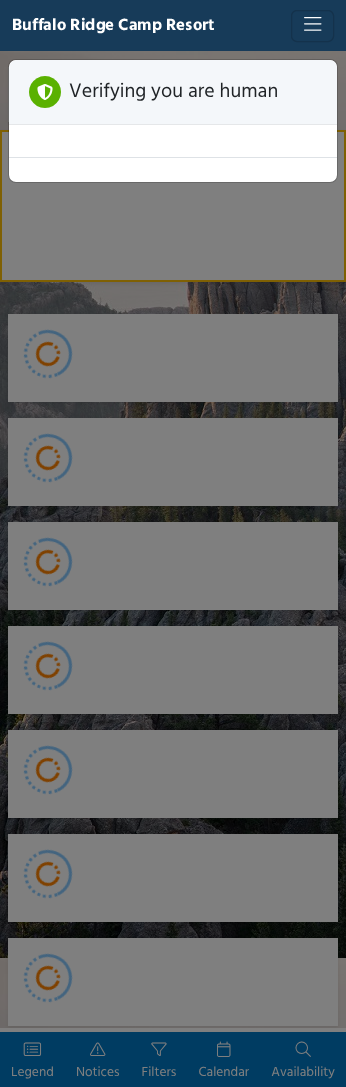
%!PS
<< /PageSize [346 1087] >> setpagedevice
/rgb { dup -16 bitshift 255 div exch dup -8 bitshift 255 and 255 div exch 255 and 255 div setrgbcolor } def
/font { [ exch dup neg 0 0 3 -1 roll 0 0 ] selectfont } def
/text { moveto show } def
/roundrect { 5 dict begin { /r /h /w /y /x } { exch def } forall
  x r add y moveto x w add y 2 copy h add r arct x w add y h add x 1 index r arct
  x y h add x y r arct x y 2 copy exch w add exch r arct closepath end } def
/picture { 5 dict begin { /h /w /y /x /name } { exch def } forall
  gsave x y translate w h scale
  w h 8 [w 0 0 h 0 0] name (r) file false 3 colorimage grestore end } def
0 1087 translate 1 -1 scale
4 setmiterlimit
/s1 { /Hind-Bold 16.75 font 16#FFFFFF rgb } def
16#FFFFFF rgb
0 0 346 1087 rectfill
16#173B59 rgb
0 0 346 51 rectfill
s1
(Buffalo Ridge Camp Resort) 12 30 text
16#14324C rgb
291.5 10.5 42 31 5.5 roundrect stroke
(pic1.raw) 304 17 18 14 picture
(pic2.raw) 0 51 346 1036 picture
showpage
